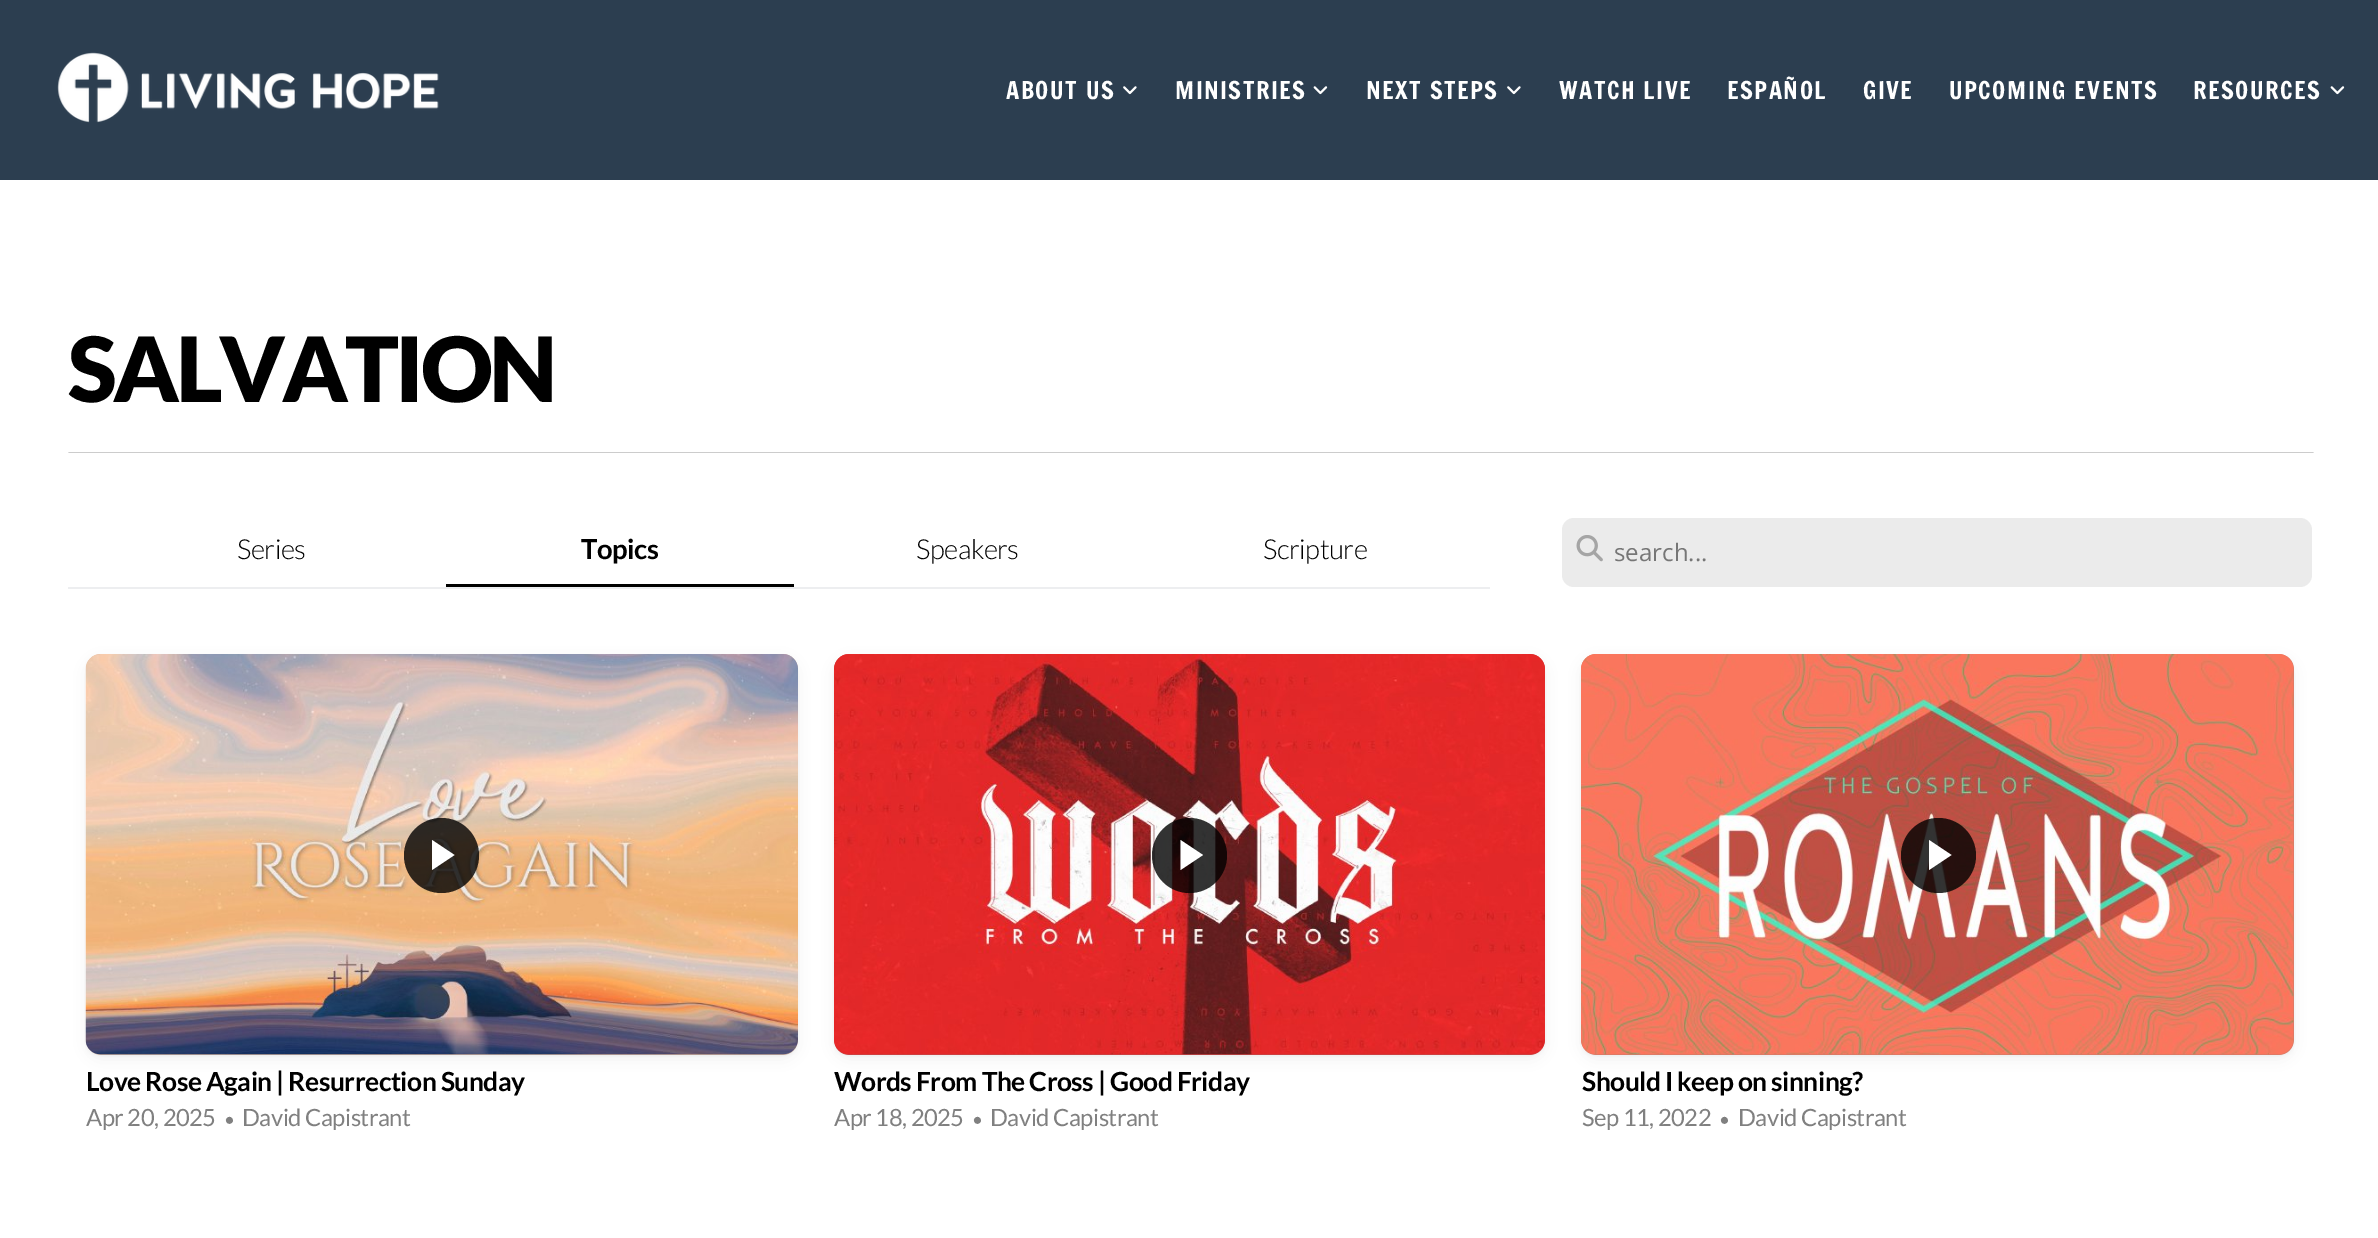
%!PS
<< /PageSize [2378 1238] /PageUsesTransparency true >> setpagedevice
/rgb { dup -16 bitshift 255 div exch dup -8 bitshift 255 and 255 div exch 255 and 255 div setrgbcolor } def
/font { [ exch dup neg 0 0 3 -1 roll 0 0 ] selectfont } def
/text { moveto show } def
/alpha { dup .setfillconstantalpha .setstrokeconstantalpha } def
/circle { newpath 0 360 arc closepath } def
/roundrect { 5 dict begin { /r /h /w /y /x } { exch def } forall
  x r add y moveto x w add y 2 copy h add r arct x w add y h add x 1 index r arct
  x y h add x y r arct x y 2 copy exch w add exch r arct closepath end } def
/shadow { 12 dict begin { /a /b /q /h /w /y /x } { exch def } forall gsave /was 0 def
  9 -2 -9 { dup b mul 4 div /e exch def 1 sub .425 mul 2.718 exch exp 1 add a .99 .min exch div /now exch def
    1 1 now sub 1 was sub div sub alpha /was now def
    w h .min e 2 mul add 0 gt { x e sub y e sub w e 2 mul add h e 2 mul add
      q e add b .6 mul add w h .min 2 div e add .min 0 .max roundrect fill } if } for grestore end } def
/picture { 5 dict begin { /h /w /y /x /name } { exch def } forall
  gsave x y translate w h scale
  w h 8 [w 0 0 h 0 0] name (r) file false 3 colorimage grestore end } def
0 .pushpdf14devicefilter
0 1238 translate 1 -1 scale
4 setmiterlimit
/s1 { /OpenSans-Regular 24 font 16#767676 rgb } def
16#FFFFFF rgb
0 0 2378 1238 rectfill
16#2C3E50 rgb
0 0 2378 180 rectfill
(pic1.raw) 57 52 382 71 picture
/FrancoisOne-Regular 24 font
16#FFFFFF rgb
1006 99 moveto 1.5 0 (ABOUT US) ashow
(pic2.raw) 1123 86 14 9 picture
1175 99 moveto 1.5 0 (MINISTRIES) ashow
(pic3.raw) 1313 86 15 9 picture
1366 99 moveto 1.5 0 (NEXT STEPS) ashow
(pic2.raw) 1507 86 14 9 picture
1559 99 moveto 1.5 0 (WATCH LIVE) ashow
1727 99 moveto 1.5 0 (ESPAÑOL) ashow
1863 99 moveto 1.5 0 (GIVE) ashow
1949 99 moveto 1.5 0 (UPCOMING EVENTS) ashow
2193 99 moveto 1.5 0 (RESOURCES) ashow
(pic3.raw) 2330 86 15 9 picture
/Lato-Black 90 font
16#000000 rgb
68 402 moveto -3.5 0 (SALVATION) ashow
16#CCCCCC rgb
2314 453 moveto 68 453 lineto 69 452 lineto 2313 452 lineto closepath fill
16#EDEEF0 rgb
68 587 1422 2 rectfill
/Lato-Light 27.5 font
16#000000 rgb
237 559 moveto -0.5 0 (Series) ashow
446 584 348 3 rectfill
/Lato-Bold 27.5 font
581 559 moveto -0.5 0 (Topics) ashow
/Lato-Light 27.5 font
916 559 moveto -0.5 0 (Speakers) ashow
1263 559 moveto -0.5 0 (Scripture) ashow
16#EBEBEB rgb
1562 518 750 69 12 roundrect fill
(pic4.raw) 1576 535 27 27 picture
s1
(search...) 1614 561 text
16#000000 rgb
86 656 712 400 15 1.5 0.04 shadow
86 659 712 400 15 7.5 0.06 shadow
16#C6AA9A rgb
86 654 712 401 15 roundrect fill
(pic5.raw) 85 654 713 401 picture
0.8 alpha
16#000000 rgb
441.5 855.5 37.5 circle fill
1 alpha
16#FFFFFF rgb
432 870 moveto 432 840 lineto 454.5 855 lineto closepath fill
/Lato-Bold 26.4 font
16#000000 rgb
86 1091 moveto -0.5 0 (Love Rose Again | Resurrection Sunday) ashow
/Lato-Regular 23.75 font
16#808080 rgb
86 1126 moveto -0.5 0 (Apr 20, 2025) ashow
/Lato-Regular 19 font
224 1126 moveto -0.5 0 (•) ashow
/Lato-Regular 23.75 font
242 1126 moveto -0.5 0 (David Capistrant) ashow
16#000000 rgb
834 656 711 400 15 1.5 0.04 shadow
834 659 711 400 15 7.5 0.06 shadow
16#C64747 rgb
834 654 711 401 15 roundrect fill
(pic6.raw) 834 654 711 401 picture
0.8 alpha
16#000000 rgb
1189.5 855.5 37.5 circle fill
1 alpha
16#FFFFFF rgb
1180.5 870 moveto 1180.5 840 lineto 1203 855 lineto closepath fill
/Lato-Bold 26.4 font
16#000000 rgb
834 1091 moveto -0.5 0 (Words From The Cross | Good Friday) ashow
/Lato-Regular 23.75 font
16#808080 rgb
834 1126 moveto -0.5 0 (Apr 18, 2025) ashow
/Lato-Regular 19 font
972 1126 moveto -0.5 0 (•) ashow
/Lato-Regular 23.75 font
990 1126 moveto -0.5 0 (David Capistrant) ashow
16#000000 rgb
1581 656 713 400 15 1.5 0.04 shadow
1581 659 713 400 15 7.5 0.06 shadow
16#D77B67 rgb
1581 654 713 401 15 roundrect fill
(pic7.raw) 1581 654 713 401 picture
0.8 alpha
16#000000 rgb
1938.5 855.5 37.5 circle fill
1 alpha
16#FFFFFF rgb
1929 870 moveto 1929 840 lineto 1951.5 855 lineto closepath fill
/Lato-Bold 26.4 font
16#000000 rgb
1582 1091 moveto -0.5 0 (Should I keep on sinning?) ashow
/Lato-Regular 23.75 font
16#808080 rgb
1582 1126 moveto -0.5 0 (Sep 11, 2022) ashow
/Lato-Regular 19 font
1719 1126 moveto -0.5 0 (•) ashow
/Lato-Regular 23.75 font
1738 1126 moveto -0.5 0 (David Capistrant) ashow
.poppdf14devicefilter showpage
